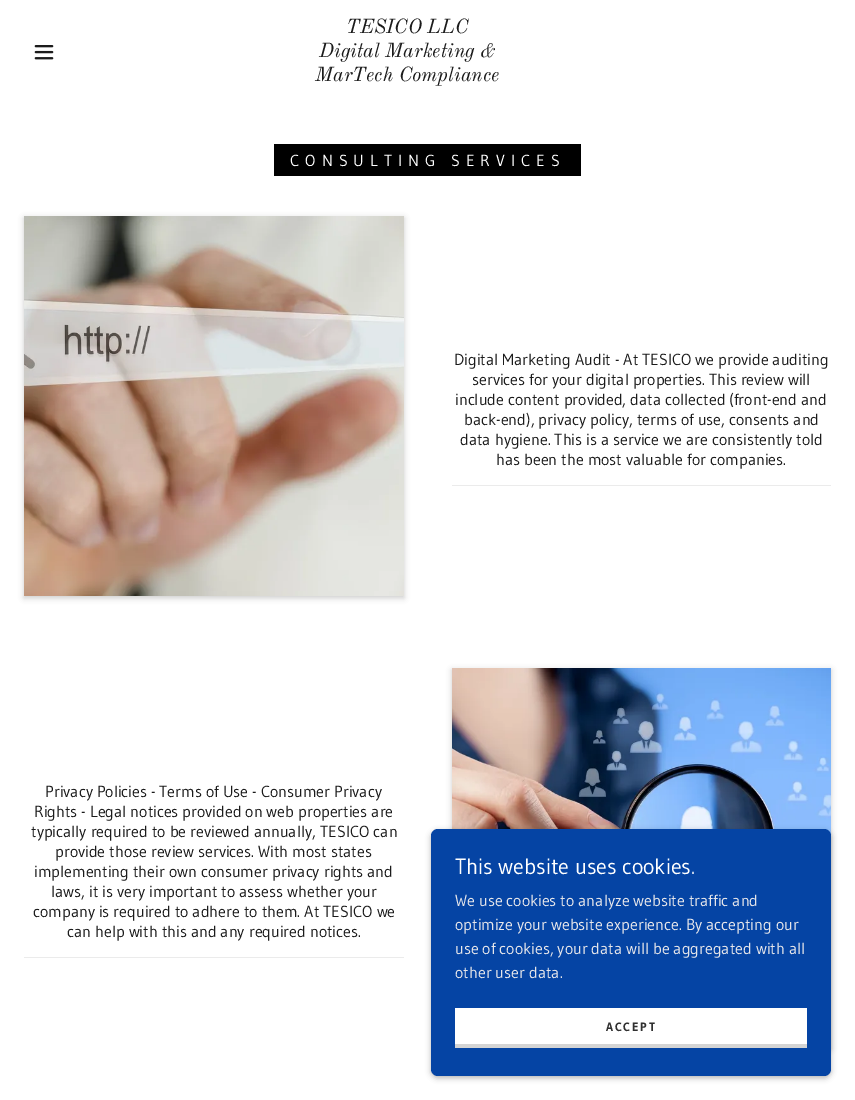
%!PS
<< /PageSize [855 1100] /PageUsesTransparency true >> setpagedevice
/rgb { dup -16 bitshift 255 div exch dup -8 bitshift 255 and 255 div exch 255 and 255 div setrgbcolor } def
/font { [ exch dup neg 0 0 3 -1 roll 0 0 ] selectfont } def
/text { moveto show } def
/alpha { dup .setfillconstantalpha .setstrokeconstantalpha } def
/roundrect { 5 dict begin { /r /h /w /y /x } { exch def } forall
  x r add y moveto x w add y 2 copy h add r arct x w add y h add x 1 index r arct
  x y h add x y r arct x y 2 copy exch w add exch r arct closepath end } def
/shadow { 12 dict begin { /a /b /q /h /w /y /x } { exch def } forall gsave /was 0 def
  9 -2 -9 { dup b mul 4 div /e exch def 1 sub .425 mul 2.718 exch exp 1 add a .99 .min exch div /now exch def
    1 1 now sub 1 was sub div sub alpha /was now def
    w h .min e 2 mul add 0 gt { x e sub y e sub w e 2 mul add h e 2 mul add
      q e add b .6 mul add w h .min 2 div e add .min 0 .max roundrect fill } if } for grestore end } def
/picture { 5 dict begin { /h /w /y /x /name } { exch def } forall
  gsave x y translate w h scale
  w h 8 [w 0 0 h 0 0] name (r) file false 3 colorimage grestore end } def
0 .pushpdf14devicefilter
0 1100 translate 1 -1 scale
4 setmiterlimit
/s1 { /OldStandardTT-Italic 20 font 16#1B1B1B rgb } def
/s2 { /Gudea-Regular 16 font 16#1B1B1B rgb } def
/s3 { /Gudea-Regular 22 font 16#FFFFFF rgb } def
/s4 { /Gudea-Regular 16 font 16#E6E6EA rgb } def
16#FFFFFF rgb
0 0 855 1100 rectfill
(pic1.raw) 34 45 20 15 picture
s1
(TESICO LLC) 346 33 text
(Digital Marketing &) 319 57 text
(MarTech Compliance) 315 81 text
16#000000 rgb
274 144 307 32 rectfill
/Gudea-Regular 16 font
16#FFFFFF rgb
290 166 moveto 6 0 (CONSULTING SERVICES) ashow
16#000000 rgb
24 218 380 380 0 3 0.2 shadow
(pic2.raw) 24 216 380 380 picture
16#EBEBEB rgb
452 485 379 1 rectfill
s2
(Digital Marketing Audit - At TESICO we provide auditing) 454 365 text
(services for your digital properties. This review will) 472 385 text
(include content provided, data collected \(front-end and) 455 405 text
(back-end\), privacy policy, terms of use, consents and) 464 425 text
(data hygiene. This is a service we are consistently told) 460 445 text
(has been the most valuable for companies.) 496 465 text
16#EBEBEB rgb
24 957 380 1 rectfill
s2
(Privacy Policies - Terms of Use - Consumer Privacy) 45 797 text
(Rights - Legal notices provided on web properties are) 34 817 text
(typically required to be reviewed annually, TESICO can) 31 837 text
(provide those review services. With most states) 55 857 text
(implementing their own consumer privacy rights and) 34 877 text
(laws, it is very important to assess whether your) 51 897 text
(company is required to adhere to them. At TESICO we) 33 917 text
(can help with this and any required notices.) 67 937 text
16#000000 rgb
452 670 379 379 0 3 0.2 shadow
(pic3.raw) 452 668 379 168 picture
431 831 400 247 7 3 0.3 shadow
16#0544A4 rgb
431 829 400 247 7 roundrect fill
s3
(This website uses cookies.) 455 874 text
s4
(We use cookies to analyze website traffic and) 455 906 text
(optimize your website experience. By accepting our) 455 930 text
(use of cookies, your data will be aggregated with all) 455 954 text
(other user data.) 455 978 text
16#FFFFFF rgb
455 1008 352 36 rectfill
16#D4D4D4 rgb
455 1044 352 4 rectfill
/Gudea-Bold 12 font
16#303030 rgb
606 1031 moveto 1.75 0 (ACCEPT) ashow
.poppdf14devicefilter showpage
